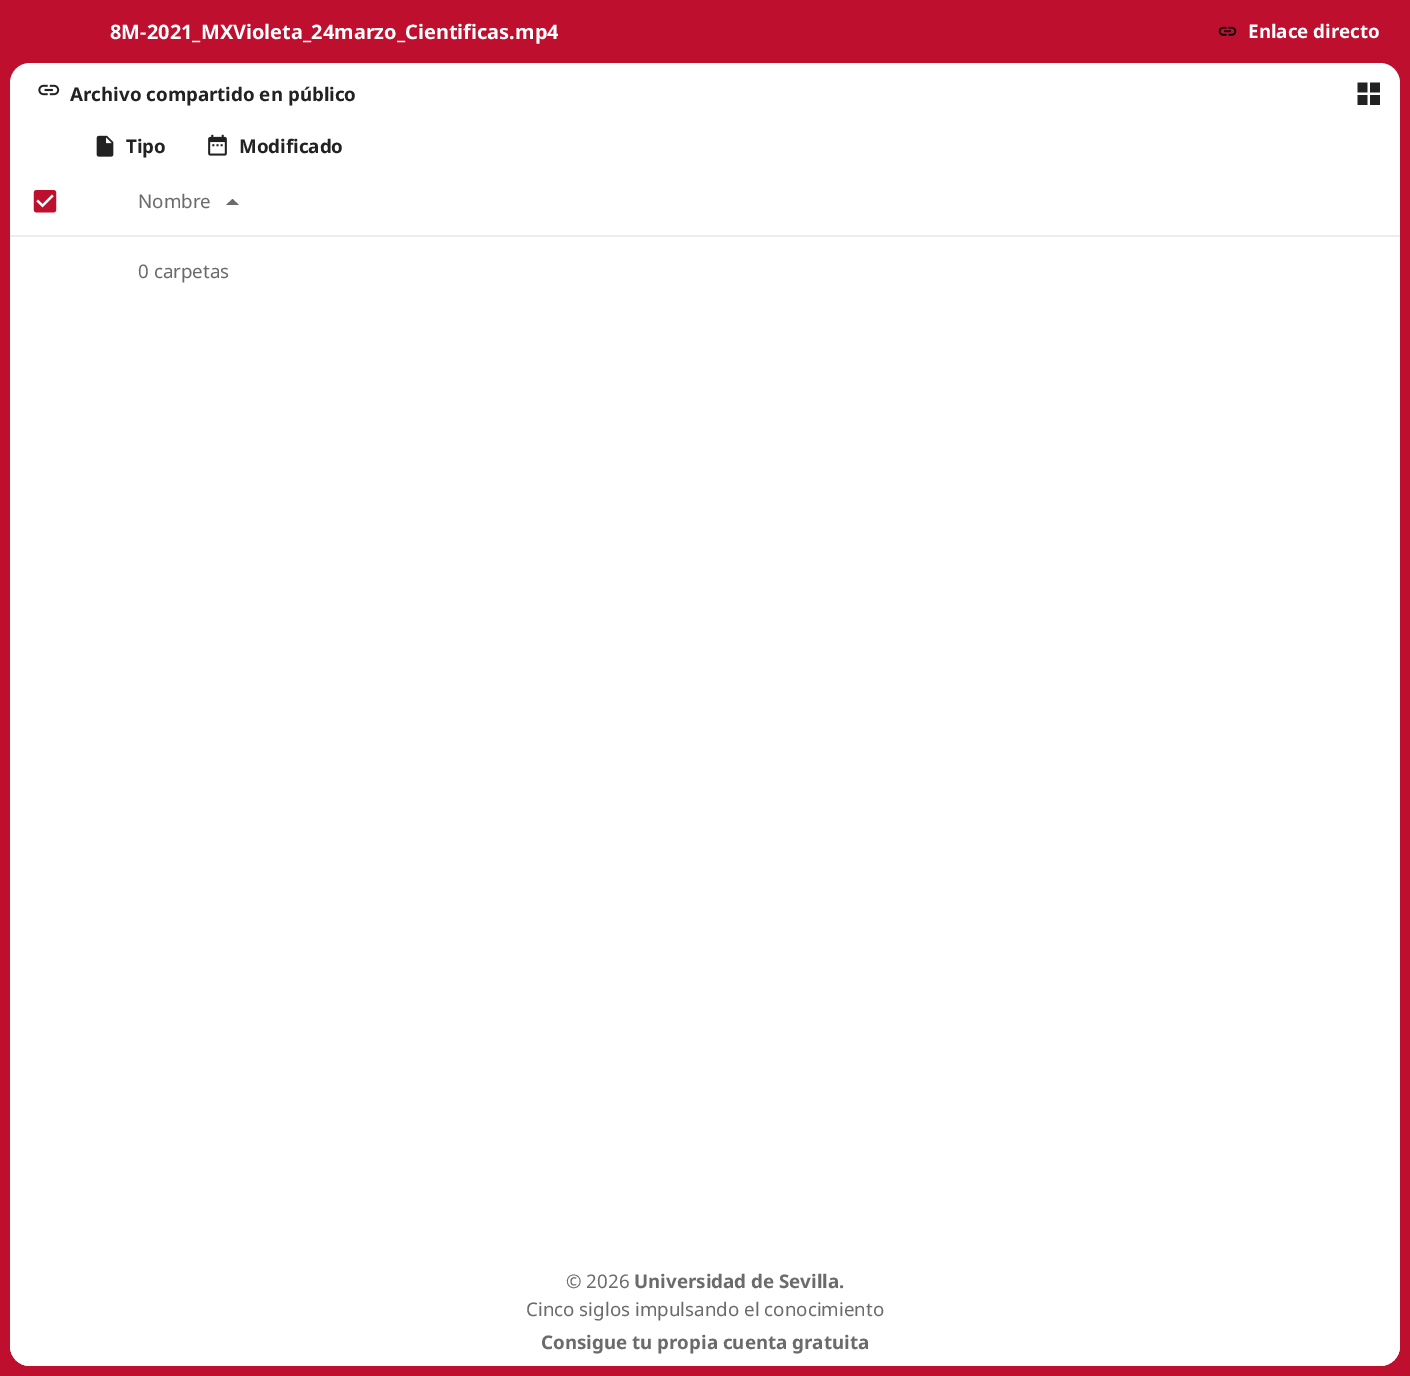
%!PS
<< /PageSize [1410 1376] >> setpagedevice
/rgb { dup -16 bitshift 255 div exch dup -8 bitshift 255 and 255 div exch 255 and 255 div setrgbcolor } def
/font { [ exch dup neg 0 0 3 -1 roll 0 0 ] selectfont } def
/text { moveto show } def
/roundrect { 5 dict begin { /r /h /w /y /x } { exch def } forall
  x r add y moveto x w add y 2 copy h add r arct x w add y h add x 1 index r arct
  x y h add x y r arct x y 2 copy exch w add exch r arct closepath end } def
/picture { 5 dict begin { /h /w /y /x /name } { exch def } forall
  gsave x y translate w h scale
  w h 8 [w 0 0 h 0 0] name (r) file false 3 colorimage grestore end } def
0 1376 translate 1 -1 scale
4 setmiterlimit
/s1 { /NotoSans-Bold 20 font 16#FFFFFF rgb } def
/s2 { /NotoSans-Bold 18.75 font 16#FFFFFF rgb } def
/s3 { /NotoSans-Bold 18.75 font 16#222222 rgb } def
/s4 { /NotoSans-Regular 18.75 font 16#6B6B6B rgb } def
/s5 { /NotoSans-Bold 18.75 font 16#6B6B6B rgb } def
16#BE0F2E rgb
0 0 1410 1376 rectfill
s1
(8M-2021_MXVioleta_24marzo_Cientificas.mp4) 110 39 text
(pic1.raw) 1218 26 19 10 picture
s2
(Enlace directo) 1248 38 text
10 63 1390 1303 20 roundrect fill
(pic2.raw) 38 84 22 12 picture
s3
(Archivo compartido en público) 70 101 text
(pic3.raw) 1357 82 23 23 picture
(pic4.raw) 96 135 18 22 picture
(Tipo) 126 153 text
(pic5.raw) 208 134 19 22 picture
(Modificado) 239 153 text
(pic6.raw) 33 190 24 23 picture
s4
(Nombre) 138 208 text
226 205 moveto 232.5 199 lineto 239 205 lineto closepath fill
16#EDEDED rgb
10 235 1390 2 rectfill
s4
(0 carpetas) 138 278 text
16#FFFFFF rgb
10 1263 1390 103 20 roundrect fill
s4
(© 2026) 566 1288 text
s5
(Universidad de Sevilla.) 634 1288 text
s4
(Cinco siglos impulsando el conocimiento) 526 1316 text
s5
(Consigue tu propia cuenta gratuita) 541 1349 text
showpage
